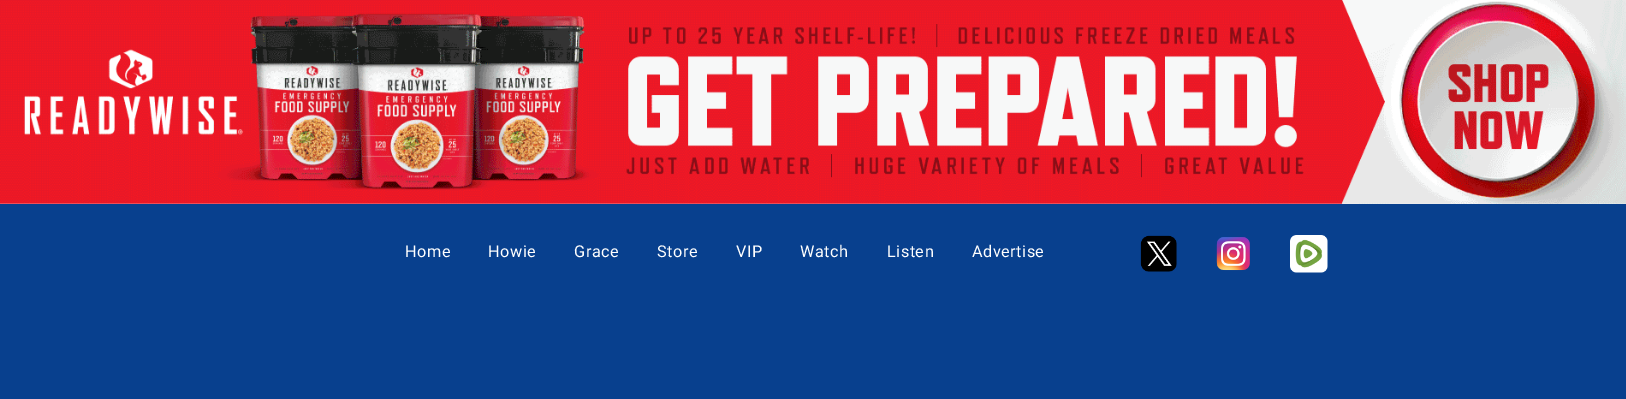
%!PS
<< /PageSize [1626 399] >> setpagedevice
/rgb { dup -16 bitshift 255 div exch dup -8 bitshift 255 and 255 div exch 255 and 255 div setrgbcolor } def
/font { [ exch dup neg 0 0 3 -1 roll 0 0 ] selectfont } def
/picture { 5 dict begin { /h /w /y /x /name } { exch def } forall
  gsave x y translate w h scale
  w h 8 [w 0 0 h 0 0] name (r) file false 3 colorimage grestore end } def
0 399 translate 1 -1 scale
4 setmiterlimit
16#FFFFFF rgb
0 0 1626 399 rectfill
(pic1.raw) 0 0 1626 204 picture
16#08408E rgb
0 204 1626 195 rectfill
/Roboto-Regular 16.25 font
16#FFFFFF rgb
405 257 moveto 0.5 0 (Home) ashow
488 257 moveto 0.5 0 (Howie) ashow
574 257 moveto 0.5 0 (Grace) ashow
657 257 moveto 0.5 0 (Store) ashow
736 257 moveto 0.5 0 (VIP) ashow
800 257 moveto 0.5 0 (Watch) ashow
887 257 moveto 0.5 0 (Listen) ashow
972 257 moveto 0.5 0 (Advertise) ashow
(pic2.raw) 1140 235 37 37 picture
(pic3.raw) 1216 237 34 34 picture
(pic4.raw) 1290 235 38 38 picture
showpage
